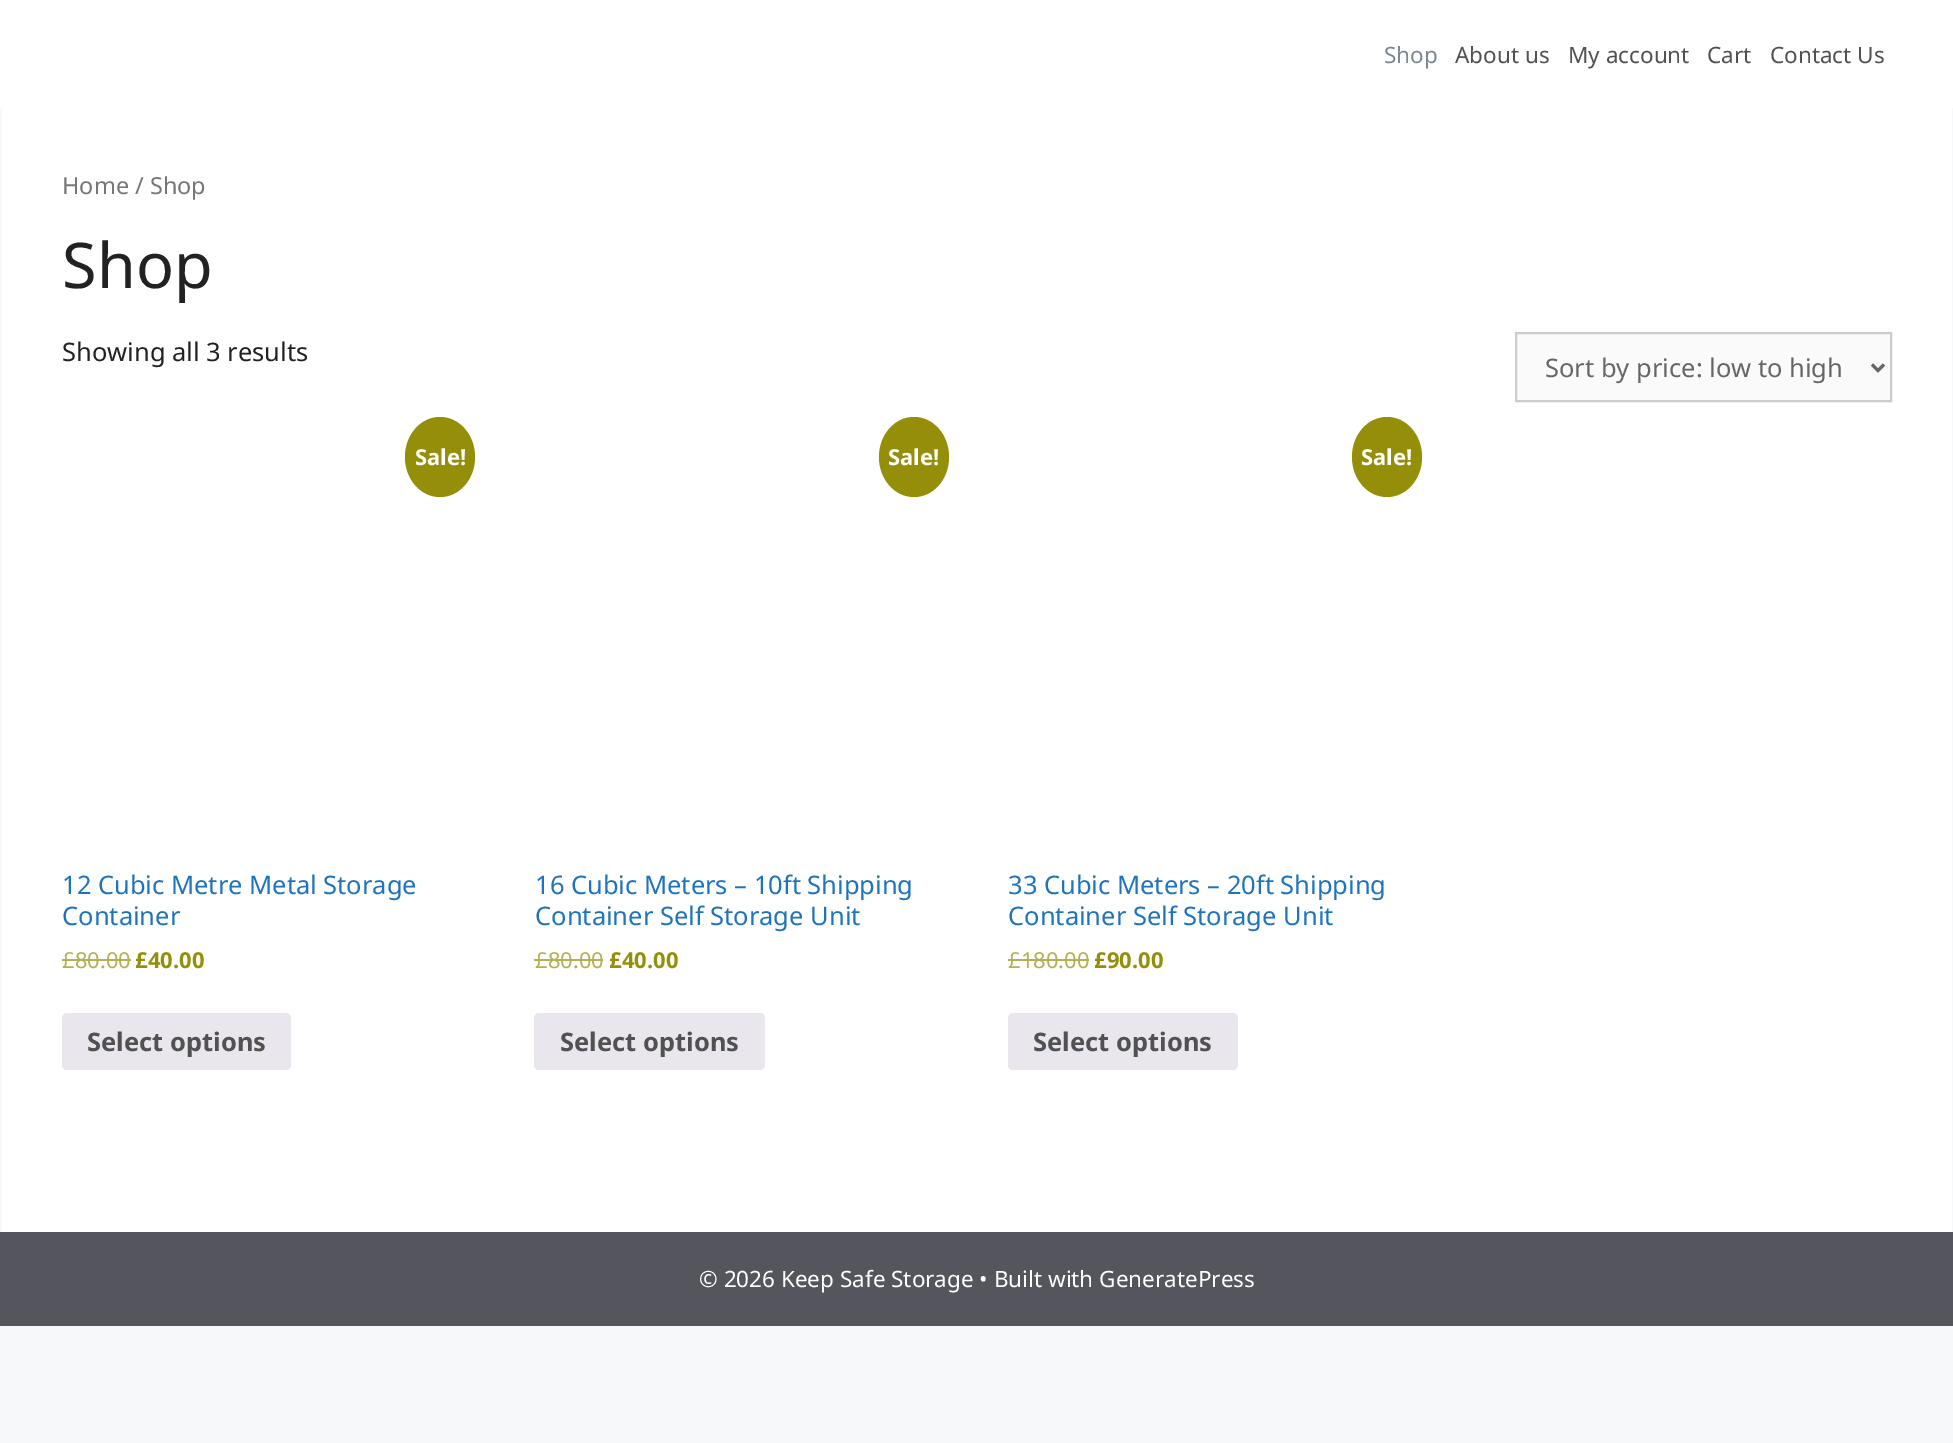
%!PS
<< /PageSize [1953 1443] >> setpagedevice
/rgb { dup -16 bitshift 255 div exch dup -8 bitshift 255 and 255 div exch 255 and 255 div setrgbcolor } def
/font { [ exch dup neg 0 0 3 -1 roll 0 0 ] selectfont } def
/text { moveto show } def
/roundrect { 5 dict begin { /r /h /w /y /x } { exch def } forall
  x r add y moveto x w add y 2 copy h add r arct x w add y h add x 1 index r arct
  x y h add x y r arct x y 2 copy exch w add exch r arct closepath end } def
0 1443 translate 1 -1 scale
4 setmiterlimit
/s1 { /NotoSans-Regular 22.5 font 16#7A8896 rgb } def
/s2 { /NotoSans-Regular 22.5 font 16#515151 rgb } def
/s3 { /NotoSans-Regular 23.5 font 16#767676 rgb } def
/s4 { /NotoSans-Regular 63 font 16#222222 rgb } def
/s5 { /NotoSans-Regular 25.5 font 16#222222 rgb } def
/s6 { /NotoSans-Regular 25.5 font 16#666666 rgb } def
/s7 { /NotoSans-Bold 22 font 16#FFFFFF rgb } def
/s8 { /NotoSans-Regular 25.5 font 16#1E73BE rgb } def
/s9 { /NotoSans-Regular 22 font 16#B5B053 rgb } def
/s10 { /NotoSans-Bold 22 font 16#958E09 rgb } def
/s11 { /NotoSans-Bold 25.5 font 16#515151 rgb } def
/s12 { /NotoSans-Regular 22.5 font 16#FFFFFF rgb } def
16#F7F8F9 rgb
0 0 1953 1443 rectfill
16#FFFFFF rgb
0 0 1953 108 rectfill
s1
(Shop) 1384 63 text
s2
(About us) 1455 63 text
(My account) 1568 63 text
(Cart) 1707 63 text
(Contact Us) 1770 63 text
16#FFFFFF rgb
2 108 1950 1124 rectfill
s3
(Home / Shop) 62 194 text
s4
(Shop) 62 288 text
s5
(Showing all 3 results) 62 361 text
16#FAFAFA rgb
1516 333 moveto 1891 333 lineto 1891 401 lineto 1516 401 lineto closepath gsave fill grestore
16#CCCCCC rgb
2 setlinewidth
stroke
16#666666 rgb
3 setlinewidth
1872 364.5 moveto 1878 370.5 lineto 1884 364.5 lineto stroke
(Sort by price: low to high) 1545 377 text
16#958E09 rgb
440 417 moveto 459.5 417 475 435 475 457 curveto 475 479 459.5 497 440 497 curveto 420.5 497 405 479 405 457 curveto 405 435 420.5 417 440 417 curveto closepath fill
s7
(Sale!) 415 465 text
s8
(12 Cubic Metre Metal Storage) 62 894 text
(Container) 62 925 text
s9
(£80.00) 62 968 text
62 959 69 2 rectfill
s10
(£40.00) 135 968 text
16#E9E6ED rgb
62 1013 229 57 5 roundrect fill
s11
(Select options) 87 1051 text
16#958E09 rgb
914 417 moveto 933.5 417 949 435 949 457 curveto 949 479 933.5 497 914 497 curveto 894.5 497 879 479 879 457 curveto 879 435 894.5 417 914 417 curveto closepath fill
s7
(Sale!) 888 465 text
s8
(16 Cubic Meters – 10ft Shipping) 535 894 text
(Container Self Storage Unit) 535 925 text
s9
(£80.00) 535 968 text
534 959 69 2 rectfill
s10
(£40.00) 609 968 text
16#E9E6ED rgb
534 1013 231 57 5 roundrect fill
s11
(Select options) 560 1051 text
16#958E09 rgb
1387 417 moveto 1406.5 417 1422 435 1422 457 curveto 1422 479 1406.5 497 1387 497 curveto 1367.5 497 1352 479 1352 457 curveto 1352 435 1367.5 417 1387 417 curveto closepath fill
s7
(Sale!) 1361 465 text
s8
(33 Cubic Meters – 20ft Shipping) 1008 894 text
(Container Self Storage Unit) 1008 925 text
s9
(£180.00) 1008 968 text
1008 959 81 2 rectfill
s10
(£90.00) 1094 968 text
16#E9E6ED rgb
1008 1013 230 57 5 roundrect fill
s11
(Select options) 1033 1051 text
16#55555E rgb
0 1232 1953 94 rectfill
s12
(© 2026 Keep Safe Storage • Built with GeneratePress) 699 1287 text
showpage
